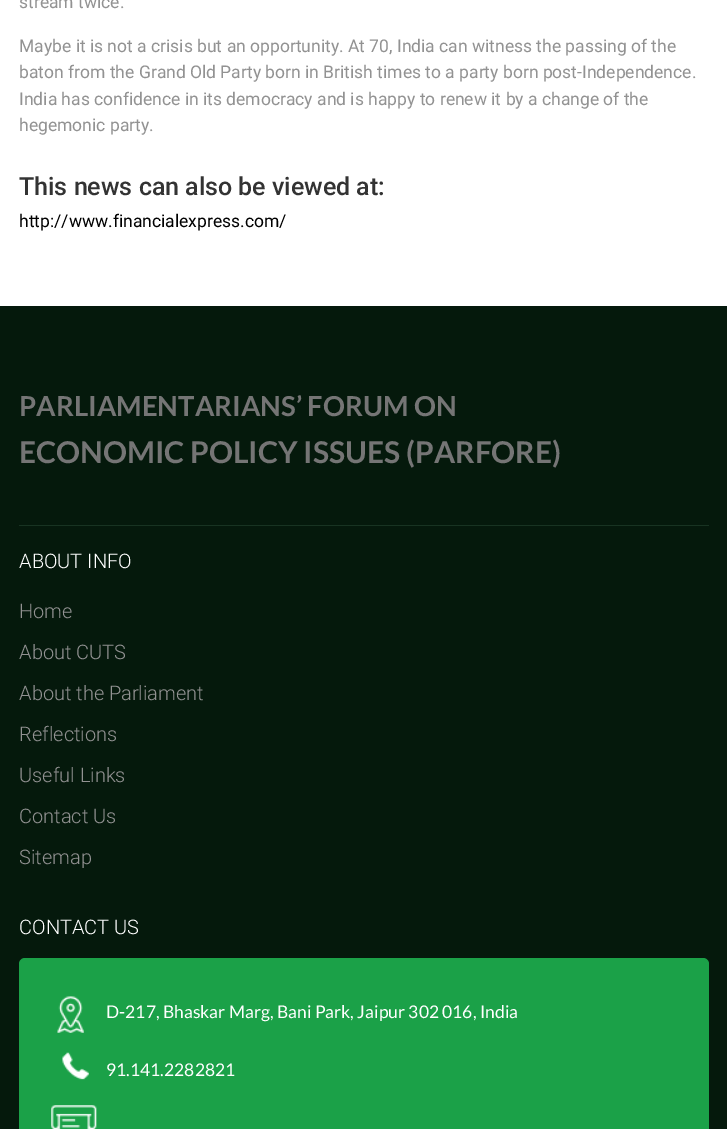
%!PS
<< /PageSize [727 1129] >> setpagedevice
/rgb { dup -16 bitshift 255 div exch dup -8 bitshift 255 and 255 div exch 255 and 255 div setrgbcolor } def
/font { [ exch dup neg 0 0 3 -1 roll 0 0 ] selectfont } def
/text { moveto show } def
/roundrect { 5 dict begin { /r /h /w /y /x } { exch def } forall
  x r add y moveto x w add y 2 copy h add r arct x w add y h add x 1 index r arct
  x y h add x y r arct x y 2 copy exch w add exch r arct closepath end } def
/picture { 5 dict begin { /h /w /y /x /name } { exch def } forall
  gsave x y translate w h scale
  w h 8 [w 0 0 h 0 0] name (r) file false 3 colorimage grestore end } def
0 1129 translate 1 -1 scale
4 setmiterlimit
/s1 { /Roboto-Regular 17.5 font 16#929292 rgb } def
/s2 { /Roboto-Medium 25 font 16#333333 rgb } def
/s3 { /Roboto-Regular 17.5 font 16#000000 rgb } def
/s4 { /Lato-Bold 27.5 font 16#757575 rgb } def
/s5 { /Lato-Bold 30 font 16#757575 rgb } def
/s6 { /Roboto-Light 20 font 16#FFFFFF rgb } def
/s7 { /Roboto-Light 20 font 16#929292 rgb } def
/s8 { /Lato-Regular 17.5 font 16#FFFFFF rgb } def
16#FFFFFF rgb
0 0 727 1129 rectfill
s1
(stream twice.) 19 8 text
(Maybe it is not a crisis but an opportunity. At 70, India can witness the passing of the) 19 52 text
(baton from the Grand Old Party born in British times to a party born post-Independence.) 19 78 text
(India has confidence in its democracy and is happy to renew it by a change of the) 19 105 text
(hegemonic party.) 19 131 text
s2
(This news can also be viewed at:) 19 195 text
s3
(http://www.financialexpress.com/) 19 227 text
16#05190C rgb
0 306 727 823 rectfill
s4
(PARLIAMENTARIANS’ FORUM ON) 19 416 text
s5
(ECONOMIC POLICY ISSUES \(PARFORE\)) 19 463 text
16#183322 rgb
19 525 690 1 rectfill
s6
(ABOUT INFO) 19 568 text
s7
(Home) 19 618 text
(About CUTS) 19 659 text
(About the Parliament) 19 700 text
(Reflections) 19 741 text
(Useful Links) 19 782 text
(Contact Us) 19 823 text
(Sitemap) 19 864 text
s6
(CONTACT US) 19 934 text
16#1BA148 rgb
19 958 690 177 6 roundrect fill
(pic1.raw) 57 996 27 37 picture
s8
(D-217, Bhaskar Marg, Bani Park, Jaipur 302 016, India) 106 1018 text
(pic2.raw) 62 1052 27 28 picture
(91.141.2282821) 106 1076 text
(pic3.raw) 51 1105 46 24 picture
showpage
